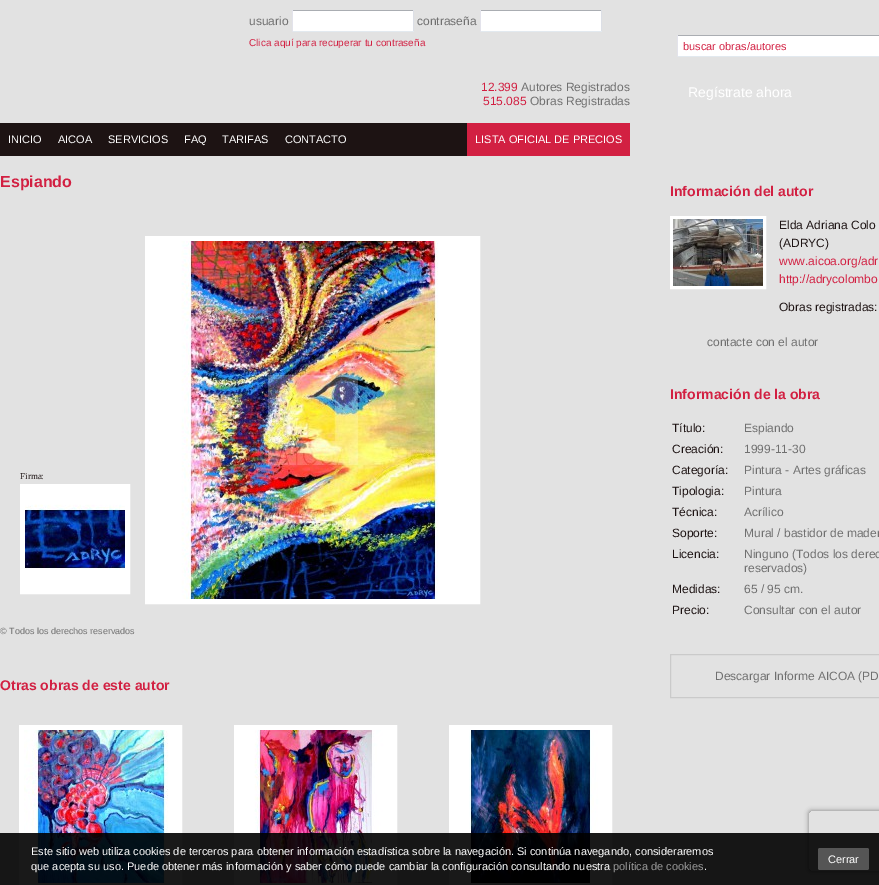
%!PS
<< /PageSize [879 885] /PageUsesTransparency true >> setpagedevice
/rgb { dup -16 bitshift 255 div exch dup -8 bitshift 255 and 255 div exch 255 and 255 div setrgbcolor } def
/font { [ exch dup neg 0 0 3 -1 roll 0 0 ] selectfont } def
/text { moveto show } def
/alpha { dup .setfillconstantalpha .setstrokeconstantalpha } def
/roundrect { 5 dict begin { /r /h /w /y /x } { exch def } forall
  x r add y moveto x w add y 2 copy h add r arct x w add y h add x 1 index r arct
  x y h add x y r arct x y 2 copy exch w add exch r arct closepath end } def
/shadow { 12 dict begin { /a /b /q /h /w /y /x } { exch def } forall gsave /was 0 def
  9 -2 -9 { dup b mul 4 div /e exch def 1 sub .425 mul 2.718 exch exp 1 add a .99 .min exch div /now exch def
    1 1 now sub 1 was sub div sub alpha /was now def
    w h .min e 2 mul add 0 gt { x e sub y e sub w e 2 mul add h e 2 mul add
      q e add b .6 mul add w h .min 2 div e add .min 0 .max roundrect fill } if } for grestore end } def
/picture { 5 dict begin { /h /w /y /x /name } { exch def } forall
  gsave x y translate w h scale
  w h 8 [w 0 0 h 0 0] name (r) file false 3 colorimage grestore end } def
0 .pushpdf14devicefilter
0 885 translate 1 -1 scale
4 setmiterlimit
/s1 { /LiberationSans-Regular 12 font 16#707070 rgb } def
/s2 { /LiberationSans-Regular 10 font 16#D22042 rgb } def
/s3 { /LiberationSans-Regular 12 font 16#D22042 rgb } def
/s4 { /LiberationSans-Regular 11 font 16#FFFFFF rgb } def
/s5 { /LiberationSans-Regular 11 font 16#D22042 rgb } def
/s6 { /LiberationSans-Regular 14 font 16#FFFFFF rgb } def
/s7 { /LiberationSans-Bold 16 font 16#D22042 rgb } def
/s8 { /LiberationSerif-Regular 9 font 16#1D1313 rgb } def
/s9 { /LiberationSans-Regular 9 font 16#707070 rgb } def
/s10 { /LiberationSans-Bold 14 font 16#D22042 rgb } def
/s11 { /LiberationSans-Regular 12 font 16#1D1313 rgb } def
/s12 { /LiberationSans-Regular 11 font 16#999999 rgb } def
16#E2E2E2 rgb
0 0 879 885 rectfill
s1
(usuario) 249 25 text
16#FFFFFF rgb
293 11 120 20 rectfill
16#AAADB2 rgb
292 10 122 1 rectfill
16#DCDFE6 rgb
413 10 1 22 rectfill
16#E2E9EF rgb
292 31 122 1 rectfill
16#E3E3EB rgb
292 10 1 22 rectfill
s1
(contraseña) 417 25 text
16#FFFFFF rgb
481 11 120 20 rectfill
16#AAADB2 rgb
480 10 122 1 rectfill
16#DCDFE6 rgb
601 10 1 22 rectfill
16#E2E9EF rgb
480 31 122 1 rectfill
16#E3E3EB rgb
480 10 1 22 rectfill
s2
(Clica aquí para recuperar tu contraseña) 249 46 text
s3
(12.399) 481 91 text
s1
(Autores Registrados) 521 91 text
s3
(515.085) 483 105 text
s1
(Obras Registradas) 530 105 text
16#1D1313 rgb
0 123 467 33 rectfill
s4
(INICIO) 8 143 text
(AICOA) 58 143 text
(SERVICIOS) 108 143 text
(FAQ) 184 143 text
(TARIFAS) 222 143 text
(CONTACTO) 285 143 text
16#D22042 rgb
467 123 163 33 rectfill
s4
(LISTA OFICIAL DE PRECIOS) 475 143 text
678 36 201 20 rectfill
16#AAADB2 rgb
677 35 202 1 rectfill
16#E2E9EF rgb
677 56 202 1 rectfill
16#E3E3EB rgb
677 35 1 22 rectfill
s5
(buscar obras/autores) 683 50 text
s6
(Regístrate ahora) 688 97 text
s7
(Espiando) 0 187 text
s8
(Firma:) 20 479 text
16#FFFFFF rgb
5 setlinewidth
22.5 486.5 105 105 rectstroke
(pic1.raw) 25 489 100 100 picture
147.5 238.5 330 363 rectstroke
(pic2.raw) 150 241 325 358 picture
s9
(© Todos los derechos reservados) 0 634 text
s10
(Otras obras de este autor) 0 690 text
16#FFFFFF rgb
21.5 727.5 158 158 rectstroke
(pic3.raw) 24 730 153 153 picture
236.5 727.5 158 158 rectstroke
(pic4.raw) 239 730 153 153 picture
451.5 727.5 158 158 rectstroke
(pic5.raw) 454 730 153 153 picture
s10
(Información del autor) 670 196 text
16#FFFFFF rgb
3 setlinewidth
671.5 217.5 93 70 rectstroke
(pic6.raw) 673 219 90 67 picture
s11
(Elda Adriana Colo) 779 229 text
(\(ADRYC\)) 779 247 text
s3
(www.aicoa.org/adr) 779 265 text
(http://adrycolombo) 779 283 text
s11
(Obras registradas:) 779 311 text
s1
(contacte con el autor) 707 346 text
s10
(Información de la obra) 670 399 text
s11
(Título:) 672 432 text
s1
(Espiando) 744 432 text
s11
(Creación:) 672 453 text
s1
(1999-11-30) 744 453 text
s11
(Categoría:) 672 474 text
s1
(Pintura - Artes gráficas) 744 474 text
s11
(Tipologia:) 672 495 text
s1
(Pintura) 744 495 text
s11
(Técnica:) 672 516 text
s1
(Acrílico) 744 516 text
s11
(Soporte:) 672 537 text
s1
(Mural / bastidor de mader) 744 537 text
s11
(Licencia:) 672 558 text
s1
(Ninguno \(Todos los derec) 744 558 text
(reservados\)) 744 572 text
s11
(Medidas:) 672 593 text
s1
(65 / 95 cm.) 744 593 text
s11
(Precio:) 672 614 text
s1
(Consultar con el autor) 744 614 text
16#CACACA rgb
1 setlinewidth
670.5 654.5 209 43 rectstroke
s1
(Descargar Informe AICOA \(PD) 715 680 text
gsave
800 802 moveto 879 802 lineto 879 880 lineto 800 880 lineto closepath 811 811 moveto 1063 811 lineto 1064 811 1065 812 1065 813 curveto 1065 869 lineto 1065 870 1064 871 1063 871 curveto 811 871 lineto 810 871 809 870 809 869 curveto 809 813 lineto 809 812 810 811 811 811 curveto closepath eoclip newpath
16#808080 rgb
809 811 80 60 2 2.5 1 shadow
grestore
0.9 alpha
16#000000 rgb
0 833 879 52 rectfill
1 alpha
s4
(Este sitio web utiliza cookies de terceros para obtener información estadística sobre la navegación. Si continúa navegando, consideraremos) 31 855 text
(que acepta su uso. Puede obtener más información y saber cómo puede cambiar la configuración consultando nuestra) 31 870 text
s12
(política de cookies) 613 870 text
s4
(.) 704 870 text
16#555555 rgb
818 848 51 22 2 roundrect fill
s4
(Cerrar) 828 863 text
.poppdf14devicefilter showpage
